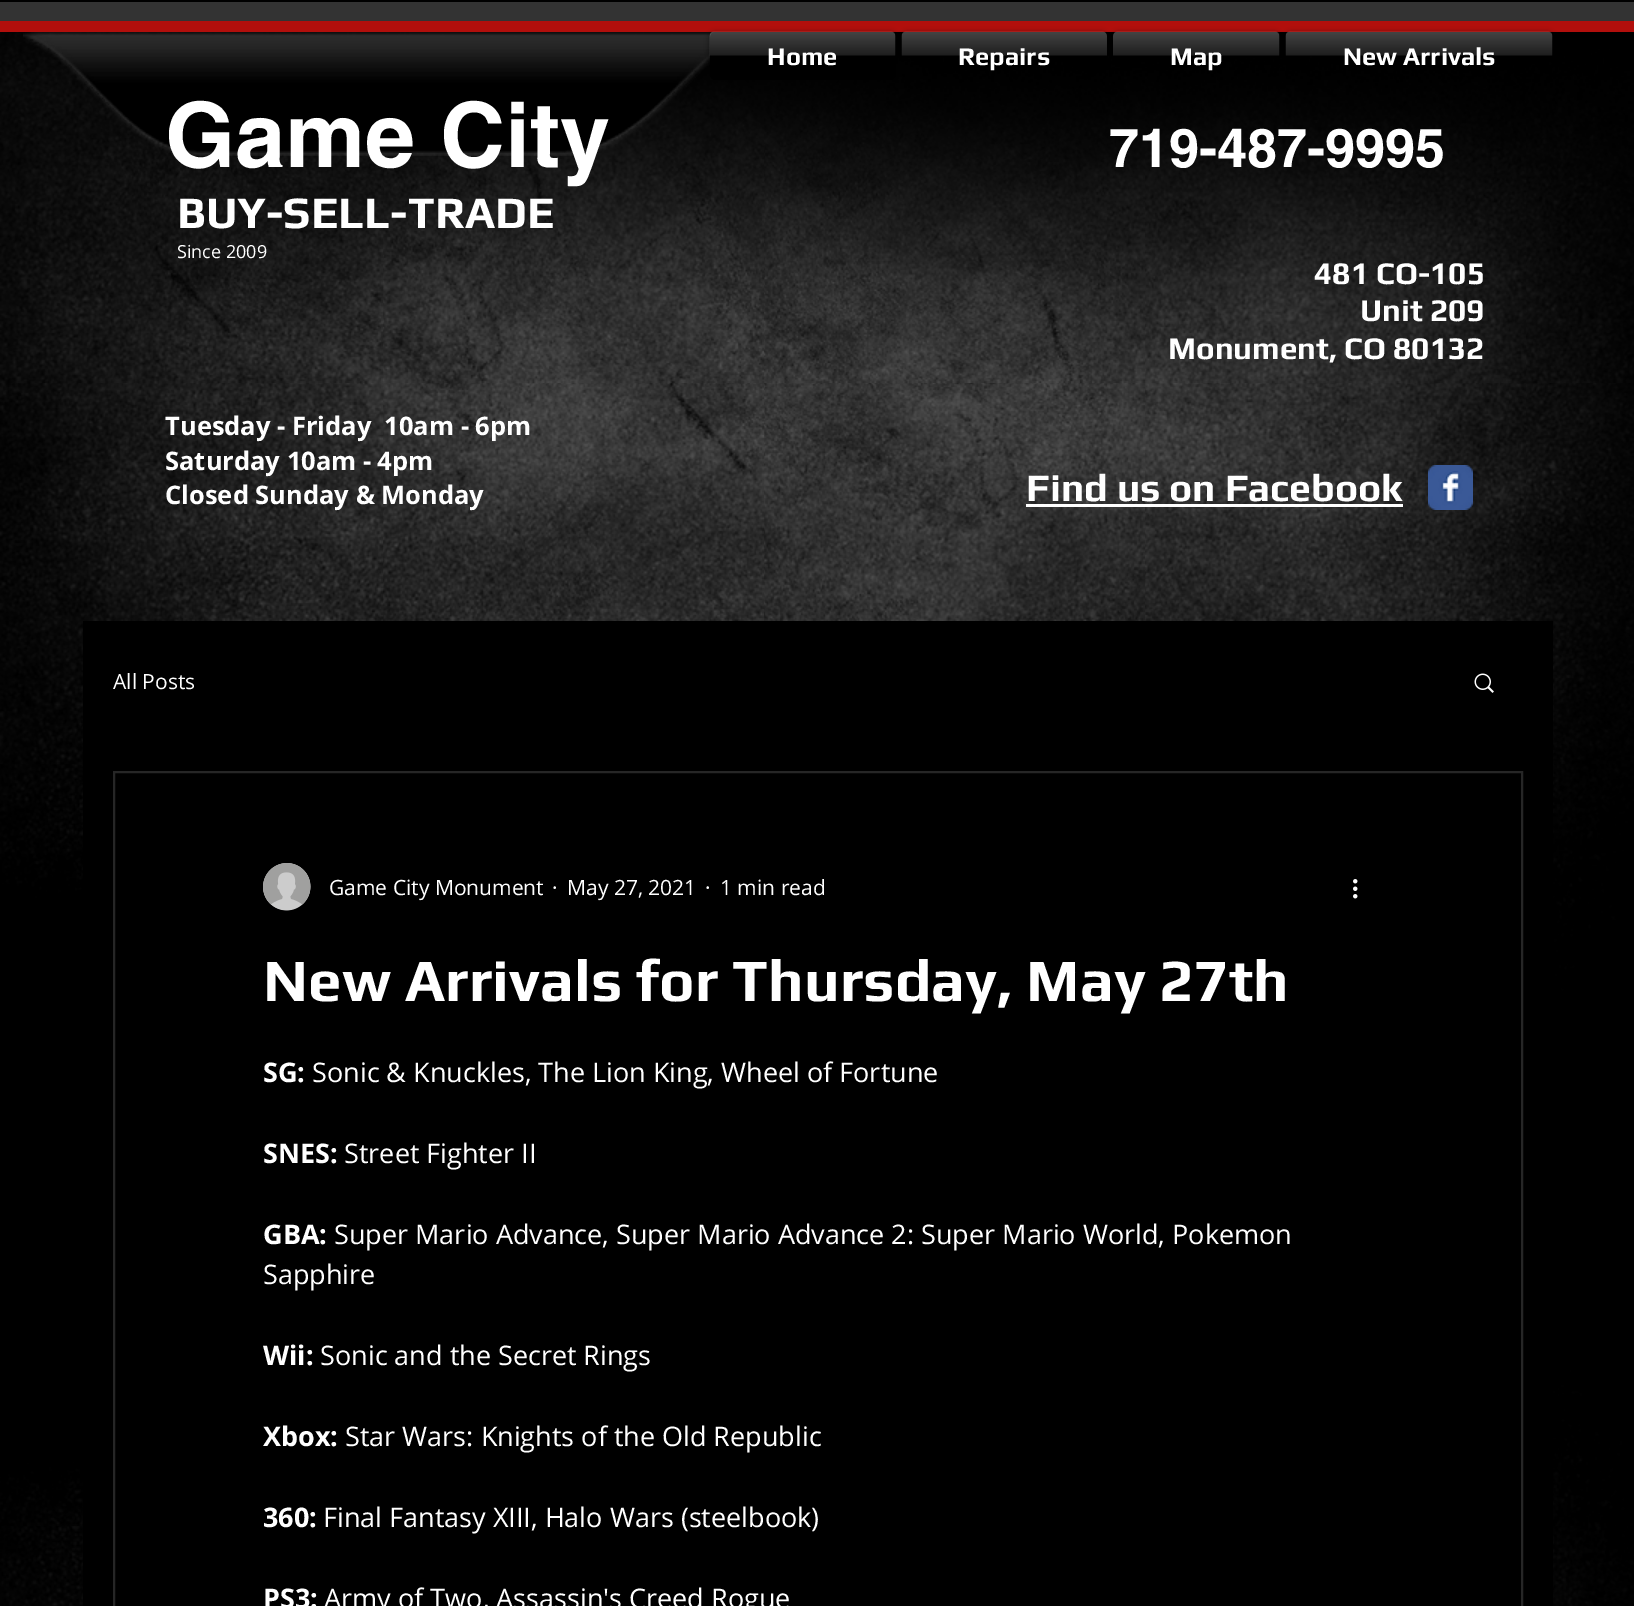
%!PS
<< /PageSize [1634 1606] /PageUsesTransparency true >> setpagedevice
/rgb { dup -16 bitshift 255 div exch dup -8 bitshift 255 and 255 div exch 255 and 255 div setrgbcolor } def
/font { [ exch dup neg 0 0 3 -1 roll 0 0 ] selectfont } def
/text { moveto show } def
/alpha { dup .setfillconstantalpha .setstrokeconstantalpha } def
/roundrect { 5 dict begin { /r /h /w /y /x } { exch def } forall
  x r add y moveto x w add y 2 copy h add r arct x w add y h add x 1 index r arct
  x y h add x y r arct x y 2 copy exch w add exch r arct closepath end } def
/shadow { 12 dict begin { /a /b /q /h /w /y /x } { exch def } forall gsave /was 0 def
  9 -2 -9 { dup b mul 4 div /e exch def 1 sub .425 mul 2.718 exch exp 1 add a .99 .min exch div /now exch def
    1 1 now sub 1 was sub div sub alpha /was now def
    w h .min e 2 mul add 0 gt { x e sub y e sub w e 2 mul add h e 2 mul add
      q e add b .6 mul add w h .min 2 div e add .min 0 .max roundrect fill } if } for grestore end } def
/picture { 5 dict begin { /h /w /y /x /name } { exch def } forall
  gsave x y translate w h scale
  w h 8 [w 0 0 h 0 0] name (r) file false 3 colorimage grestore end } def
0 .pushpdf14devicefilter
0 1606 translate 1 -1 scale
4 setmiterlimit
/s1 { /Play-Bold 25.5 font 16#FFFFFF rgb } def
/s2 { /helvetica-Bold 90 font 16#FFFFFF rgb } def
/s3 { /helvetica-Bold 54 font 16#FFFFFF rgb } def
/s4 { /Play-Bold 45 font 16#FFFFFF rgb } def
/s5 { /OpenSans-Regular 18 font 16#FFFFFF rgb } def
/s6 { /Play-Bold 31.5 font 16#FFFFFF rgb } def
/s7 { /OpenSans-Bold 25.5 font 16#FFFFFF rgb } def
/s8 { /Play-Bold 39 font 16#FFFFFF rgb } def
/s9 { /OpenSans-Regular 21 font 16#FFFFFF rgb } def
/s10 { /Play-Bold 60 font 16#FFFFFF rgb } def
/s11 { /OpenSans-Bold 27 font 16#FFFFFF rgb } def
/s12 { /OpenSans-Regular 27 font 16#FFFFFF rgb } def
16#000000 rgb
0 0 1634 1606 rectfill
(pic1.raw) 0 32 1634 1574 picture
16#333333 rgb
0 2 1634 19 rectfill
16#B20F0C rgb
0 21 1634 11 rectfill
(pic2.raw) 23 32 692 124 picture
16#000000 rgb
710 33 186 48 5 3 0.6 shadow
710 32 186 48 5 roundrect fill
(pic3.raw) 709 31 187 25 picture
s1
(Home) 767 65 text
16#000000 rgb
902 33 205 48 5 3 0.6 shadow
(pic4.raw) 901 31 206 25 picture
s1
(Repairs) 958 65 text
16#000000 rgb
1113 33 167 48 5 3 0.6 shadow
(pic5.raw) 1113 31 167 25 picture
s1
(Map) 1170 65 text
16#000000 rgb
1286 33 267 48 5 3 0.6 shadow
(pic6.raw) 1285 31 268 25 picture
s1
(New Arrivals) 1343 65 text
s2
(Game City) 165 167 text
s3
(719-487-9995) 1109 167 text
s4
(BUY-SELL-TRADE) 177 228 text
s5
(Since 2009) 177 258 text
s6
(481 CO-105) 1314 284 text
(Unit 209) 1360 321 text
(Monument, CO 80132) 1168 359 text
s7
(Tuesday - Friday  10am - 6pm) 165 435 text
(Saturday 10am - 4pm) 165 470 text
(Closed Sunday & Monday) 165 504 text
s8
(Find us on Facebook) 1026 501 text
1026 504 377 3 rectfill
(pic7.raw) 1428 465 45 45 picture
16#000000 rgb
83 621 1470 985 rectfill
s9
(All Posts) 113 689 text
(pic8.raw) 1474 673 20 20 picture
16#262626 rgb
2 setlinewidth
114 772 1408 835 rectstroke
(pic9.raw) 263 863 48 48 picture
s9
(Game City Monument) 329 895 text
(·) 552 895 text
(May 27, 2021) 567 895 text
(·) 705 895 text
(1 min read) 720 895 text
(pic10.raw) 1353 879 5 20 picture
s10
(New Arrivals for Thursday, May 27th) 263 1001 text
s11
(SG:) 263 1082 text
s12
(Sonic & Knuckles, The Lion King, Wheel of Fortune) 312 1082 text
s11
(SNES:) 263 1163 text
s12
(Street Fighter II) 344 1163 text
s11
(GBA:) 263 1244 text
s12
(Super Mario Advance, Super Mario Advance 2: Super Mario World, Pokemon) 334 1244 text
(Sapphire) 263 1284 text
s11
(Wii:) 263 1365 text
s12
(Sonic and the Secret Rings) 320 1365 text
s11
(Xbox:) 263 1446 text
s12
(Star Wars: Knights of the Old Republic) 345 1446 text
s11
(360:) 263 1527 text
s12
(Final Fantasy XIII, Halo Wars \(steelbook\)) 323 1527 text
s11
(PS3:) 263 1608 text
s12
(Army of Two, Assassin's Creed Rogue) 324 1608 text
.poppdf14devicefilter showpage
